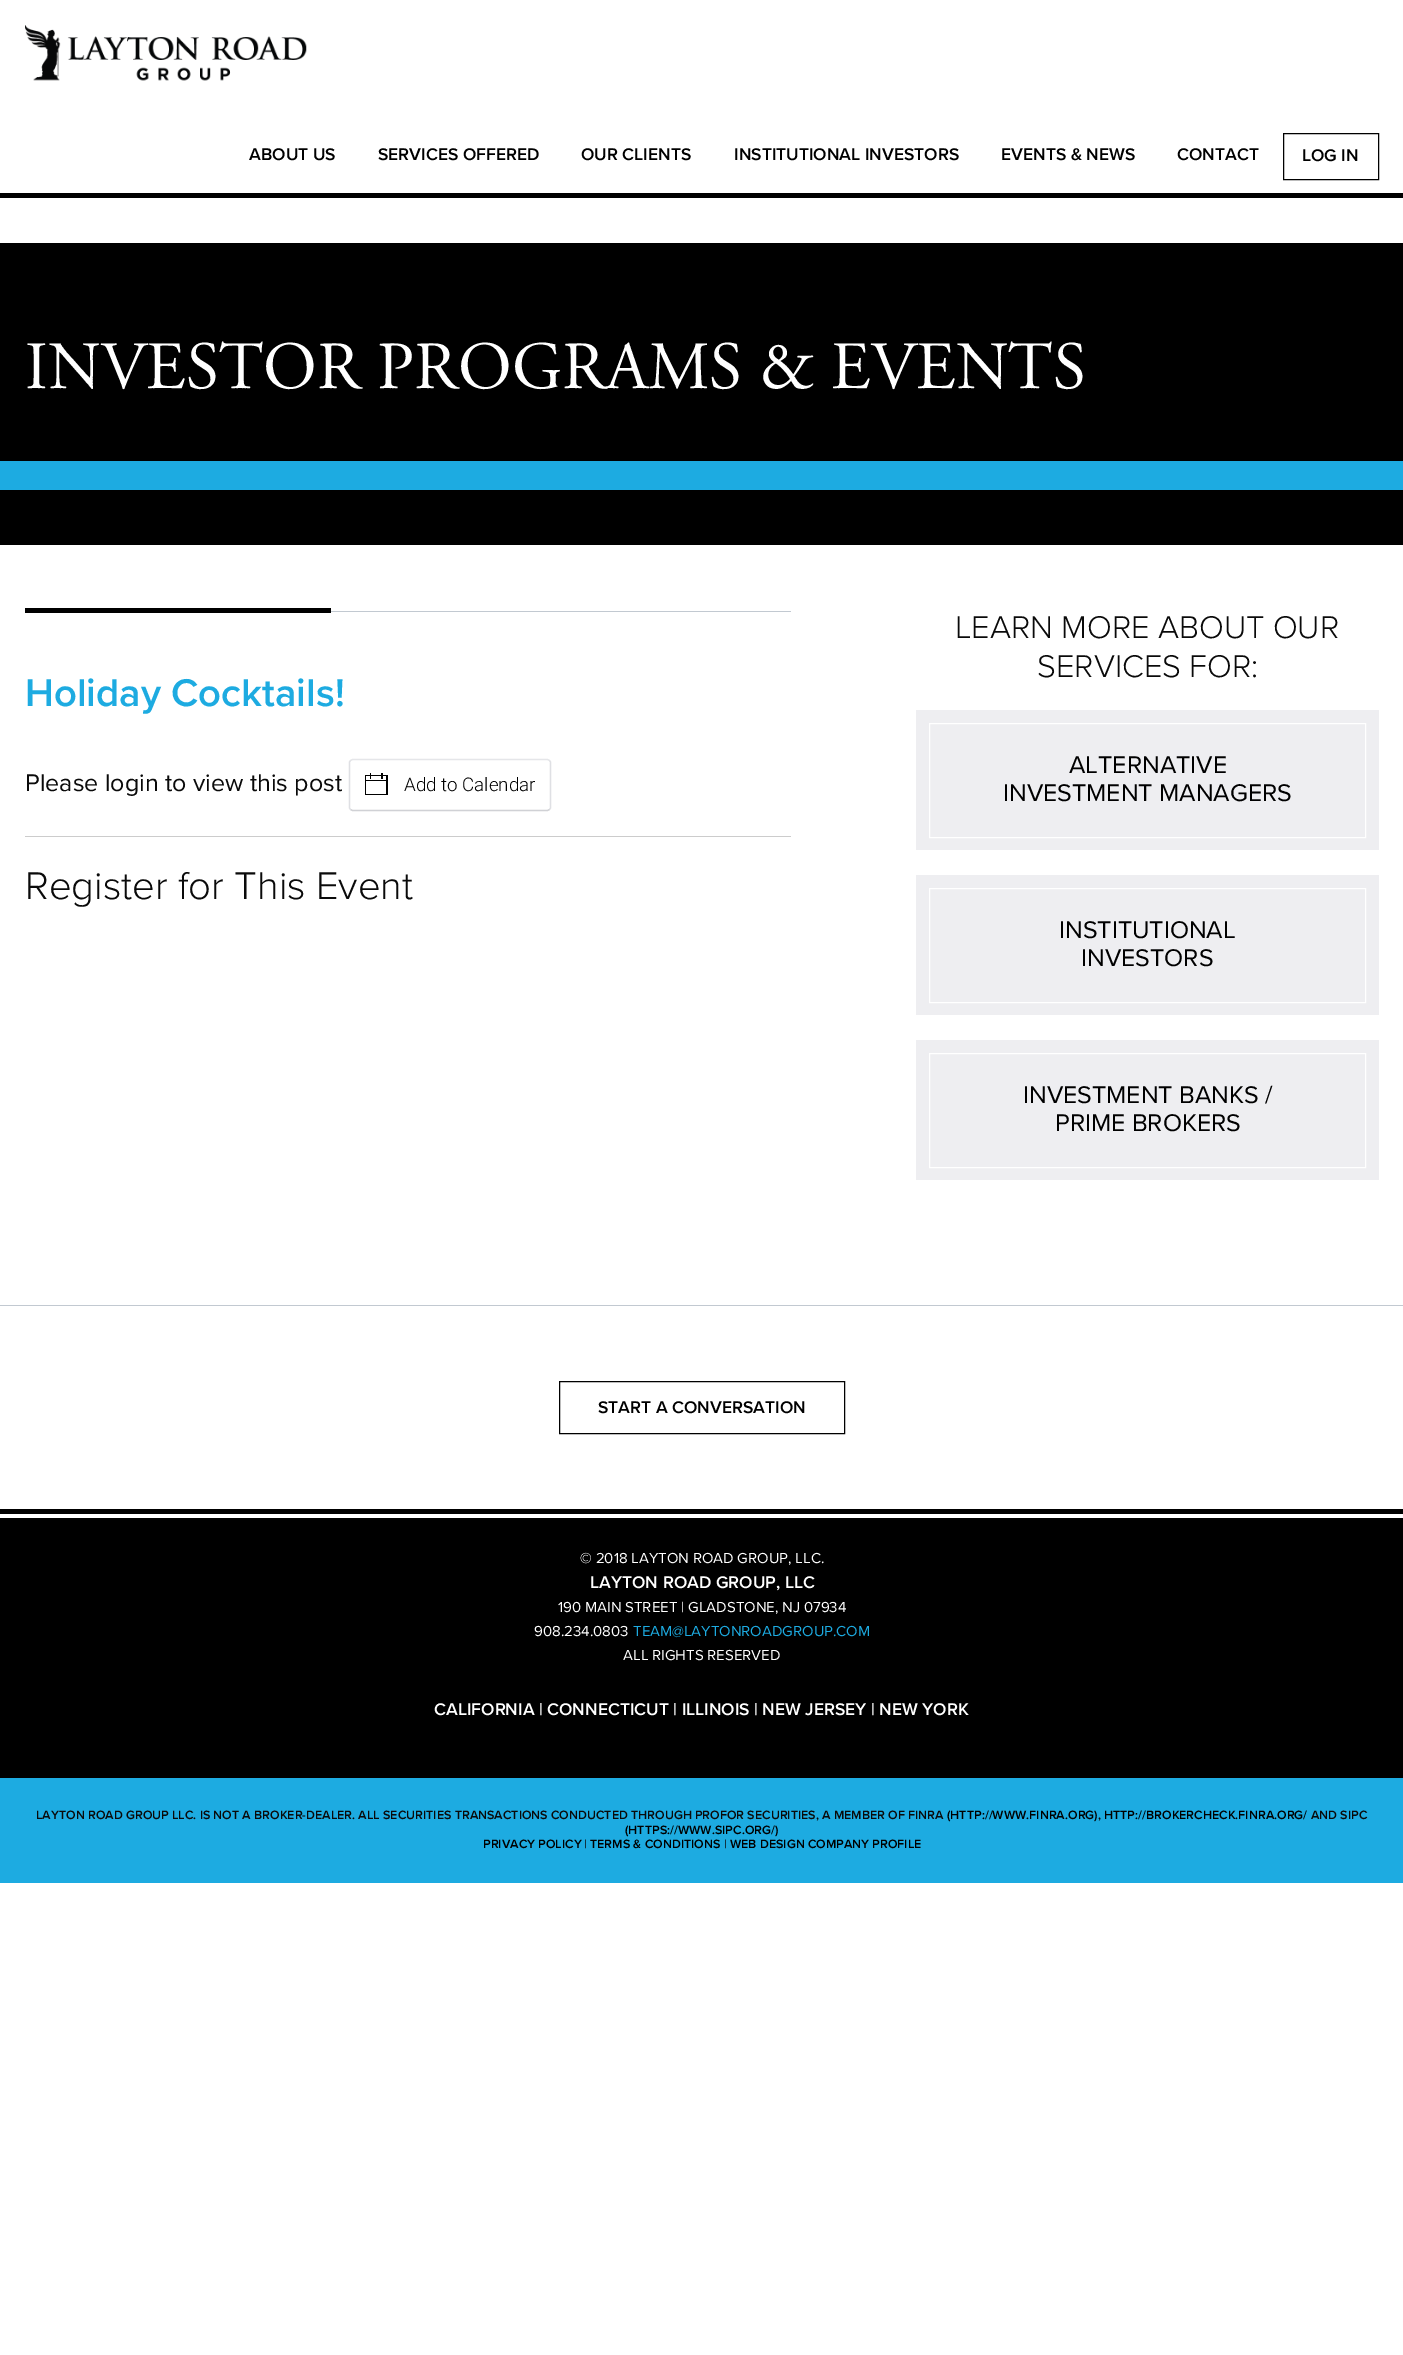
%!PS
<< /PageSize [1403 2355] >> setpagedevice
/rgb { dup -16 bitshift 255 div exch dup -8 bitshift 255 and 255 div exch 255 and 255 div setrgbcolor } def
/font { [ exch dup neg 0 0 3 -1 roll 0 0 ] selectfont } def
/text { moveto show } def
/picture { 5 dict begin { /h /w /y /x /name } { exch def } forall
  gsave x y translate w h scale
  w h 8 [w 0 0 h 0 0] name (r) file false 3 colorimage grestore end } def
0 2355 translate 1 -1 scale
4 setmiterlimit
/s1 { /ProximaNova-SemiBold 17.5 font 16#000000 rgb } def
/s2 { /AdobeGaramond-Regular 67.5 font 16#FFFFFF rgb } def
/s3 { /ProximaNova-SemiBold 40 font 16#1DABE1 rgb } def
/s4 { /ProximaNova-Regular 25 font 16#0A0A0A rgb } def
/s5 { /Roboto-Light 18.75 font 16#000000 rgb } def
/s6 { /ProximaNova-Light 40 font 16#0A0A0A rgb } def
/s7 { /ProximaNova-Light 32.5 font 16#0A0A0A rgb } def
/s8 { /ProximaNova-Regular 25 font 16#000000 rgb } def
/s9 { /ProximaNova-Regular 15 font 16#FFFFFF rgb } def
/s10 { /ProximaNova-SemiBold 17.5 font 16#FFFFFF rgb } def
/s11 { /ProximaNova-Regular 15 font 16#1DABE1 rgb } def
/s12 { /ProximaNova-SemiBold 12.5 font 16#0A0A0A rgb } def
/s13 { /ProximaNova-SemiBold 12.5 font 16#000000 rgb } def
16#FFFFFF rgb
0 0 1403 2355 rectfill
(pic1.raw) 25 25 282 56 picture
s1
(ABOUT US) 249 160 text
(SERVICES OFFERED) 378 160 text
(OUR CLIENTS) 581 160 text
(INSTITUTIONAL INVESTORS) 734 160 text
(EVENTS & NEWS) 1001 160 text
(CONTACT) 1177 160 text
1283.5 133.5 95 46 rectstroke
(LOG IN) 1302 161 text
0 193 1403 352 rectfill
16#FFFFFF rgb
0 198 1403 45 rectfill
s2
(INVESTOR PROGRAMS & EVENTS) 25 388 text
16#1DABE1 rgb
0 461 1403 29 rectfill
16#000000 rgb
25 608 306 5 rectfill
16#C2C9D1 rgb
331 611 460 1 rectfill
s3
(Holiday Cocktails!) 25 706 text
s4
(Please login to view this post) 25 791 text
16#E5E6E9 rgb
1.2 setlinewidth
350.5 760.5 moveto 352.5 759.5 lineto 547.5 759.5 lineto 549.5 760.5 lineto stroke
16#DFE0E4 rgb
549.5 760.5 moveto 550.5 762 lineto 550.5 808 lineto 549.5 809.5 lineto stroke
16#D0D1D5 rgb
549.5 809.5 moveto 547.5 810.5 lineto 352.5 810.5 lineto 350.5 809.5 lineto stroke
16#DFE0E4 rgb
350.5 809.5 moveto 349.5 808 lineto 349.5 762 lineto 350.5 760.5 lineto stroke
(pic2.raw) 365 773 23 22 picture
s5
(Add to Calendar) 404 791 text
16#CCCCCC rgb
25 836 766 1 rectfill
s6
(Register for This Event) 25 899 text
s7
(LEARN MORE ABOUT OUR) 955 638 text
(SERVICES FOR:) 1037 677 text
16#EEEEF1 rgb
916 710 463 140 rectfill
16#FFFFFF rgb
1 setlinewidth
929.5 723.5 436 114 rectstroke
s8
(ALTERNATIVE) 1069 773 text
(INVESTMENT MANAGERS) 1003 801 text
16#EEEEF1 rgb
916 875 463 140 rectfill
16#FFFFFF rgb
929.5 888.5 436 114 rectstroke
s8
(INSTITUTIONAL) 1059 938 text
(INVESTORS) 1081 966 text
16#EEEEF1 rgb
916 1040 463 140 rectfill
16#FFFFFF rgb
929.5 1053.5 436 114 rectstroke
s8
(INVESTMENT BANKS /) 1023 1103 text
(PRIME BROKERS) 1055 1131 text
16#C2C9D1 rgb
0 1305 1403 1 rectfill
16#000000 rgb
559.5 1381.5 285 52 rectstroke
s1
(START A CONVERSATION) 598 1413 text
0 1509 1403 269 rectfill
16#FFFFFF rgb
0 1514 1403 4 rectfill
s9
(© 2018 LAYTON ROAD GROUP, LLC.) 580 1563 text
s10
(LAYTON ROAD GROUP, LLC) 590 1588 text
s9
(190 MAIN STREET | GLADSTONE, NJ 07934) 558 1612 text
(908.234.0803) 534 1636 text
s11
(TEAM@LAYTONROADGROUP.COM) 633 1636 text
s9
(ALL RIGHTS RESERVED) 623 1660 text
s10
(CALIFORNIA | CONNECTICUT | ILLINOIS | NEW JERSEY | NEW YORK) 434 1715 text
16#1DABE1 rgb
0 1778 1403 105 rectfill
s12
(LAYTON ROAD GROUP LLC. IS NOT A BROKER-DEALER. ALL SECURITIES TRANSACTIONS CONDUCTED THROUGH PROFOR SECURITIES, A MEMBER OF FINRA) 36 1819 text
s13
(\(HTTP://WWW.FINRA.ORG\)) 947 1819 text
s12
(,) 1098 1819 text
s13
(HTTP://BROKERCHECK.FINRA.ORG/) 1104 1819 text
s12
(AND SIPC) 1311 1819 text
s13
(\(HTTPS://WWW.SIPC.ORG/\)) 625 1834 text
(PRIVACY POLICY) 483 1848 text
s12
(|) 584 1848 text
s13
(TERMS & CONDITIONS) 590 1848 text
s12
(|) 724 1848 text
s13
(WEB DESIGN COMPANY PROFILE) 730 1848 text
showpage
